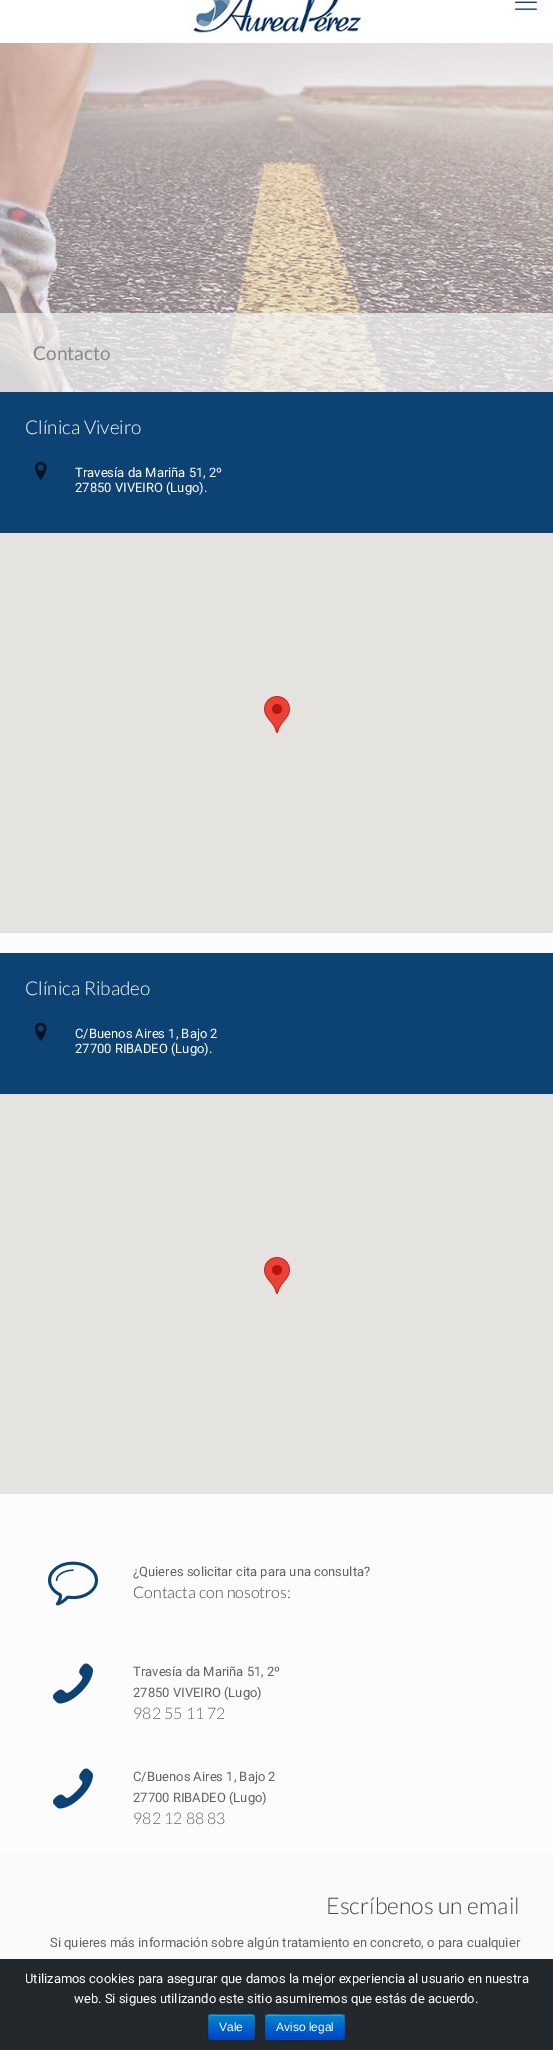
%!PS
<< /PageSize [553 2050] /PageUsesTransparency true >> setpagedevice
/rgb { dup -16 bitshift 255 div exch dup -8 bitshift 255 and 255 div exch 255 and 255 div setrgbcolor } def
/font { [ exch dup neg 0 0 3 -1 roll 0 0 ] selectfont } def
/text { moveto show } def
/alpha { dup .setfillconstantalpha .setstrokeconstantalpha } def
/roundrect { 5 dict begin { /r /h /w /y /x } { exch def } forall
  x r add y moveto x w add y 2 copy h add r arct x w add y h add x 1 index r arct
  x y h add x y r arct x y 2 copy exch w add exch r arct closepath end } def
/picture { 5 dict begin { /h /w /y /x /name } { exch def } forall
  gsave x y translate w h scale
  w h 8 [w 0 0 h 0 0] name (r) file false 3 colorimage grestore end } def
0 .pushpdf14devicefilter
0 2050 translate 1 -1 scale
4 setmiterlimit
/s1 { /Lato-Regular 19 font 16#888888 rgb } def
/s2 { /Lato-Light 19 font 16#FFFFFF rgb } def
/s3 { /Roboto-Regular 13 font 16#FFFFFF rgb } def
/s4 { /Roboto-Regular 13 font 16#626262 rgb } def
/s5 { /Lato-Light 16 font 16#444444 rgb } def
/s6 { /Lato-Light 16 font 16#626262 rgb } def
/s7 { /Lato-Light 23 font 16#444444 rgb } def
/s8 { /LiberationSans-Regular 12 font 16#FFFFFF rgb } def
16#FCFCFC rgb
0 0 553 2050 rectfill
(pic1.raw) 0 43 553 349 picture
16#FFFFFF rgb
0 0 553 43 rectfill
(pic2.raw) 189 0 173 34 picture
(pic3.raw) 515 1 22 9 picture
0.7 alpha
16#F7F7F7 rgb
0 313 553 79 rectfill
1 alpha
s1
(Contacto) 33 360 text
16#0D4275 rgb
0 392 553 141 rectfill
s2
(Clínica Viveiro) 25 434 text
(pic4.raw) 35 461 12 19 picture
s3
(Travesía da Mariña 51, 2º) 75 477 text
(27850 VIVEIRO \(Lugo\).) 75 492 text
16#E5E3DF rgb
0 533 553 400 rectfill
(pic5.raw) 264 696 26 37 picture
16#0D4275 rgb
0 953 553 141 rectfill
s2
(Clínica Ribadeo) 25 995 text
(pic4.raw) 35 1022 12 19 picture
s3
(C/Buenos Aires 1, Bajo 2) 75 1038 text
(27700 RIBADEO \(Lugo\).) 75 1053 text
16#E5E3DF rgb
0 1094 553 400 rectfill
(pic5.raw) 264 1257 26 37 picture
(pic6.raw) 48 1561 50 45 picture
s4
(¿Quieres solicitar cita para una consulta?) 133 1576 text
s5
(Contacta con nosotros:) 133 1598 text
(pic7.raw) 53 1663 40 41 picture
s4
(Travesía da Mariña 51, 2º) 133 1676 text
(27850 VIVEIRO \(Lugo\)) 133 1697 text
s6
(982 55 11 72) 133 1719 text
(pic7.raw) 53 1768 40 41 picture
s4
(C/Buenos Aires 1, Bajo 2) 133 1781 text
(27700 RIBADEO \(Lugo\)) 133 1802 text
s6
(982 12 88 83) 133 1824 text
16#F9F9F9 rgb
0 1854 553 105 rectfill
s7
(Escríbenos un email) 326 1914 text
s4
(Si quieres más información sobre algún tratamiento en concreto, o para cualquier) 50 1947 text
16#23282D rgb
0 1959 553 91 rectfill
s3
(Utilizamos cookies para asegurar que damos la mejor experiencia al usuario en nuestra) 25 1983 text
(web. Si sigues utilizando este sitio asumiremos que estás de acuerdo.) 74 2003 text
16#006DCC rgb
208 2014 47 26 3 roundrect fill
gsave
208 2014 47 26 3 roundrect clip newpath
gsave 208 2015 moveto 255 2015 lineto 255 2039 lineto 208 2039 lineto closepath clip newpath
<< /ShadingType 2 /ColorSpace /DeviceRGB /Coords [232 2015 232 2039] /Extend [true true] /Function << /FunctionType 2 /Domain [0 1] /C0 [0 0.533 0.8] /C1 [0 0.267 0.8] /N 1 >> >> shfill grestore
grestore
0.2 alpha
16#FFFFFF rgb
211 2016 moveto 252 2016 lineto 253 2016 254 2017 254 2018 curveto 254 2013 249 2015 245 2015 curveto 218 2015 lineto 214 2015 209 2013 209 2018 curveto 209 2017 210 2016 211 2016 curveto closepath fill
0.25 alpha
16#000000 rgb
254 2039 moveto 252.5 2040 210.5 2040 209 2039 curveto stroke
0.1 alpha
209 2039 moveto 207.5 2037 208.5 2029.5 208.5 2027 curveto 208.5 2014 206 2014.5 218 2014.5 curveto 245 2014.5 lineto 257 2014.5 254.5 2014 254.5 2027 curveto 254.5 2029.5 255.5 2037 254 2039 curveto stroke
1 alpha
s8
(Vale) 219 2031 text
16#006DCC rgb
265 2014 80 26 3 roundrect fill
gsave
265 2014 80 26 3 roundrect clip newpath
gsave 265 2015 moveto 345 2015 lineto 345 2039 lineto 265 2039 lineto closepath clip newpath
<< /ShadingType 2 /ColorSpace /DeviceRGB /Coords [305 2015 305 2039] /Extend [true true] /Function << /FunctionType 2 /Domain [0 1] /C0 [0 0.533 0.8] /C1 [0 0.267 0.8] /N 1 >> >> shfill grestore
grestore
0.2 alpha
16#FFFFFF rgb
268 2016 moveto 342 2016 lineto 343 2016 344 2017 344 2018 curveto 344 2012 333 2015 330 2015 curveto 280 2015 lineto 277 2015 266 2012 266 2018 curveto 266 2017 267 2016 268 2016 curveto closepath fill
0.25 alpha
16#000000 rgb
344 2039 moveto 342 2039.5 lineto 329.5 2039.5 lineto 323 2039.5 268.5 2040.5 266.5 2039 curveto 266 2039 lineto stroke
0.1 alpha
266 2039 moveto 264.5 2037 265.5 2029.5 265.5 2027 curveto 265.5 2011.5 263.5 2014.5 280.5 2014.5 curveto 329.5 2014.5 lineto 348 2014.5 344.5 2012 344.5 2030.5 curveto 344.5 2032.5 345.5 2037 344 2039 curveto stroke
1 alpha
s8
(Aviso legal) 276 2031 text
.poppdf14devicefilter showpage
